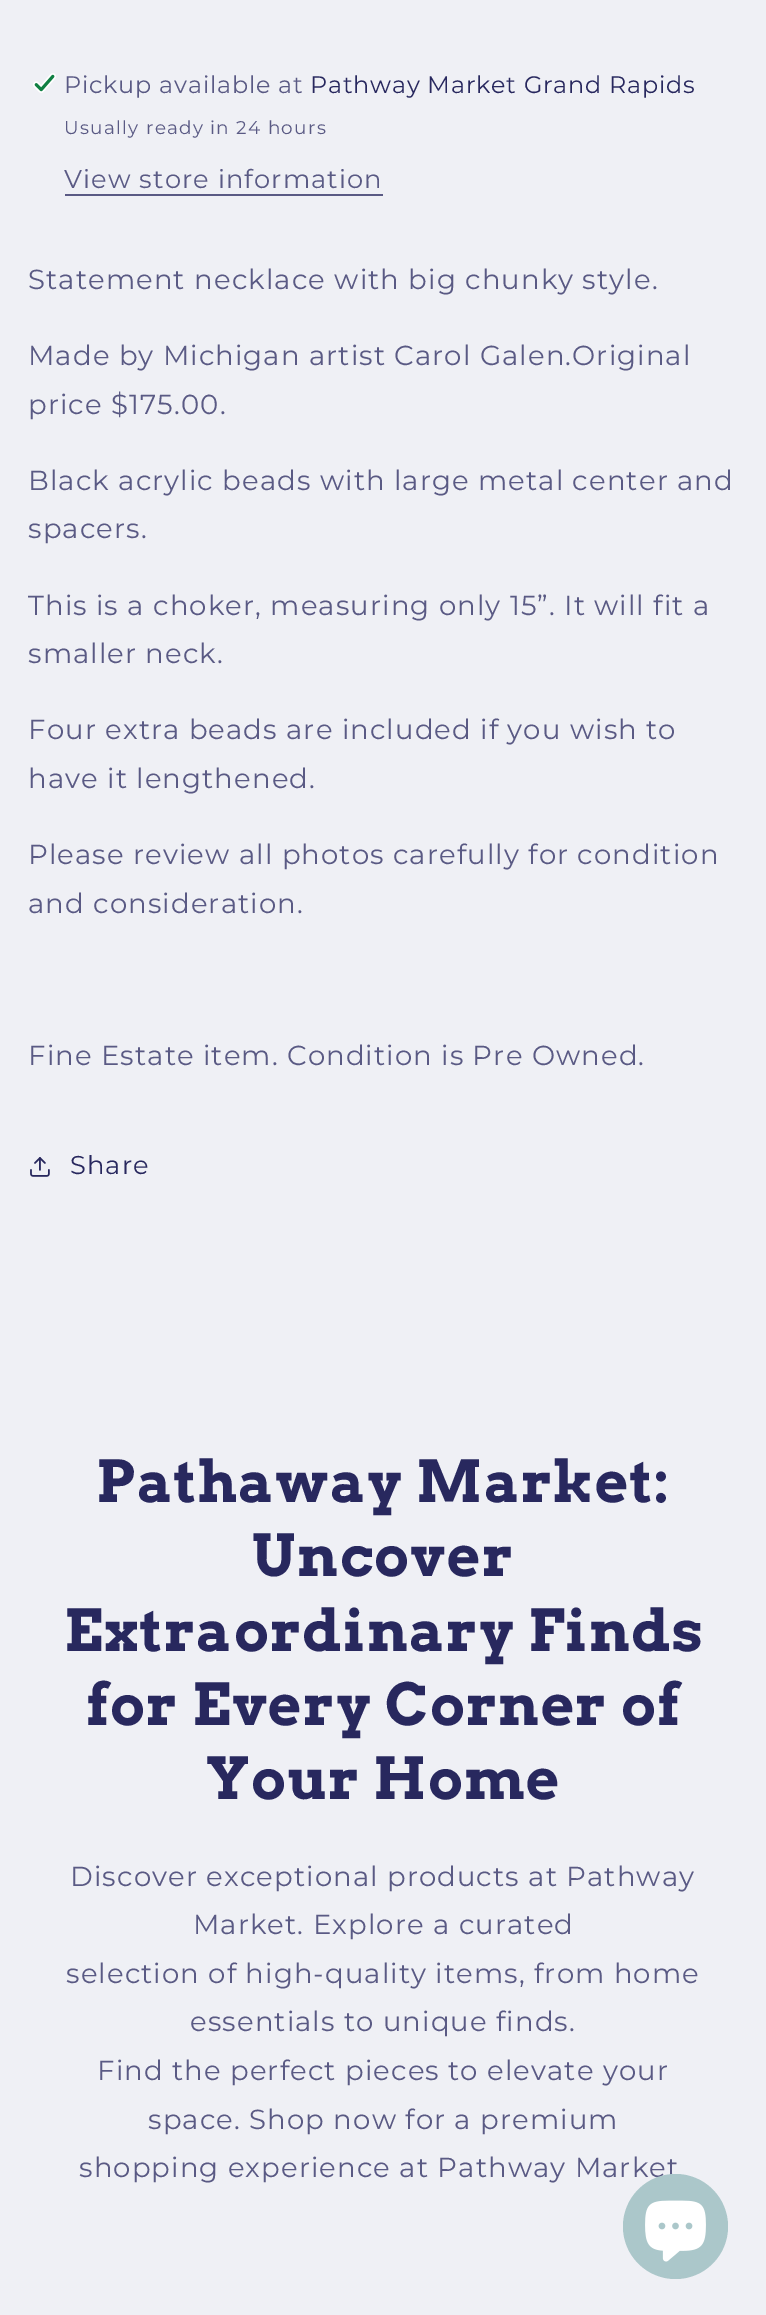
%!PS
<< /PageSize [766 2315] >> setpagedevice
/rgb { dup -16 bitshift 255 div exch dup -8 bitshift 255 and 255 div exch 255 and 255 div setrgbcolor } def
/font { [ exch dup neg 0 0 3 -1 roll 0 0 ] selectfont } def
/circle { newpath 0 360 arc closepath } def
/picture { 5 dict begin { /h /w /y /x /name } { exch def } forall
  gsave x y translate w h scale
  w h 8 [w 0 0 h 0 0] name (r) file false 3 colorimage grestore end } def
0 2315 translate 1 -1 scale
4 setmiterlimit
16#EFF0F5 rgb
0 0 766 2315 rectfill
(pic1.raw) 33 73 23 20 picture
/Montserrat-Regular 23.9 font
16#5A5A84 rgb
64 93 moveto 0.75 0 (Pickup available at) ashow
16#28285E rgb
310 93 moveto 0.75 0 (Pathway Market Grand Rapids) ashow
/Montserrat-Regular 18.4 font
16#5A5A84 rgb
64 134 moveto 1.3 0 (Usually ready in 24 hours) ashow
/Montserrat-Regular 25.75 font
64 188 moveto 1.1 0 (View store information) ashow
65 194 318 2 rectfill
/Montserrat-Regular 27.55 font
28 289 moveto 1.1 0 (Statement necklace with big chunky style.) ashow
28 365 moveto 1.1 0 (Made by Michigan artist Carol Galen.Original) ashow
28 414 moveto 1.1 0 (price $175.00.) ashow
28 490 moveto 1.1 0 (Black acrylic beads with large metal center and) ashow
28 538 moveto 1.1 0 (spacers.) ashow
28 615 moveto 1.1 0 (This is a choker, measuring only 15”. It will fit a) ashow
28 663 moveto 1.1 0 (smaller neck.) ashow
28 739 moveto 1.1 0 (Four extra beads are included if you wish to) ashow
28 788 moveto 1.1 0 (have it lengthened.) ashow
28 864 moveto 1.1 0 (Please review all photos carefully for condition) ashow
28 913 moveto 1.1 0 (and consideration.) ashow
28 1065 moveto 1.1 0 (Fine Estate item. Condition is Pre Owned.) ashow
(pic2.raw) 30 1157 20 20 picture
/Montserrat-Regular 25.75 font
16#28285E rgb
70 1174 moveto 1.1 0 (Share) ashow
/Arvo-Bold 57.75 font
96 1502 moveto 1.2 0 (Pathaway Market:) ashow
252 1576 moveto 1.2 0 (Uncover) ashow
64 1651 moveto 1.2 0 (Extraordinary Finds) ashow
86 1725 moveto 1.2 0 (for Every Corner of) ashow
206 1799 moveto 1.2 0 (Your Home) ashow
/Montserrat-Regular 27.55 font
16#5A5A84 rgb
70 1886 moveto 1.1 0 (Discover exceptional products at Pathway) ashow
193 1934 moveto 1.1 0 (Market. Explore a curated) ashow
66 1983 moveto 1.1 0 (selection of high-quality items, from home) ashow
190 2031 moveto 1.1 0 (essentials to unique finds.) ashow
97 2080 moveto 1.1 0 (Find the perfect pieces to elevate your) ashow
148 2129 moveto 1.1 0 (space. Shop now for a premium) ashow
79 2177 moveto 1.1 0 (shopping experience at Pathway Market) ashow
16#ABC7CA rgb
675.5 2226.5 52.5 circle fill
(pic3.raw) 645 2200 61 62 picture
showpage
